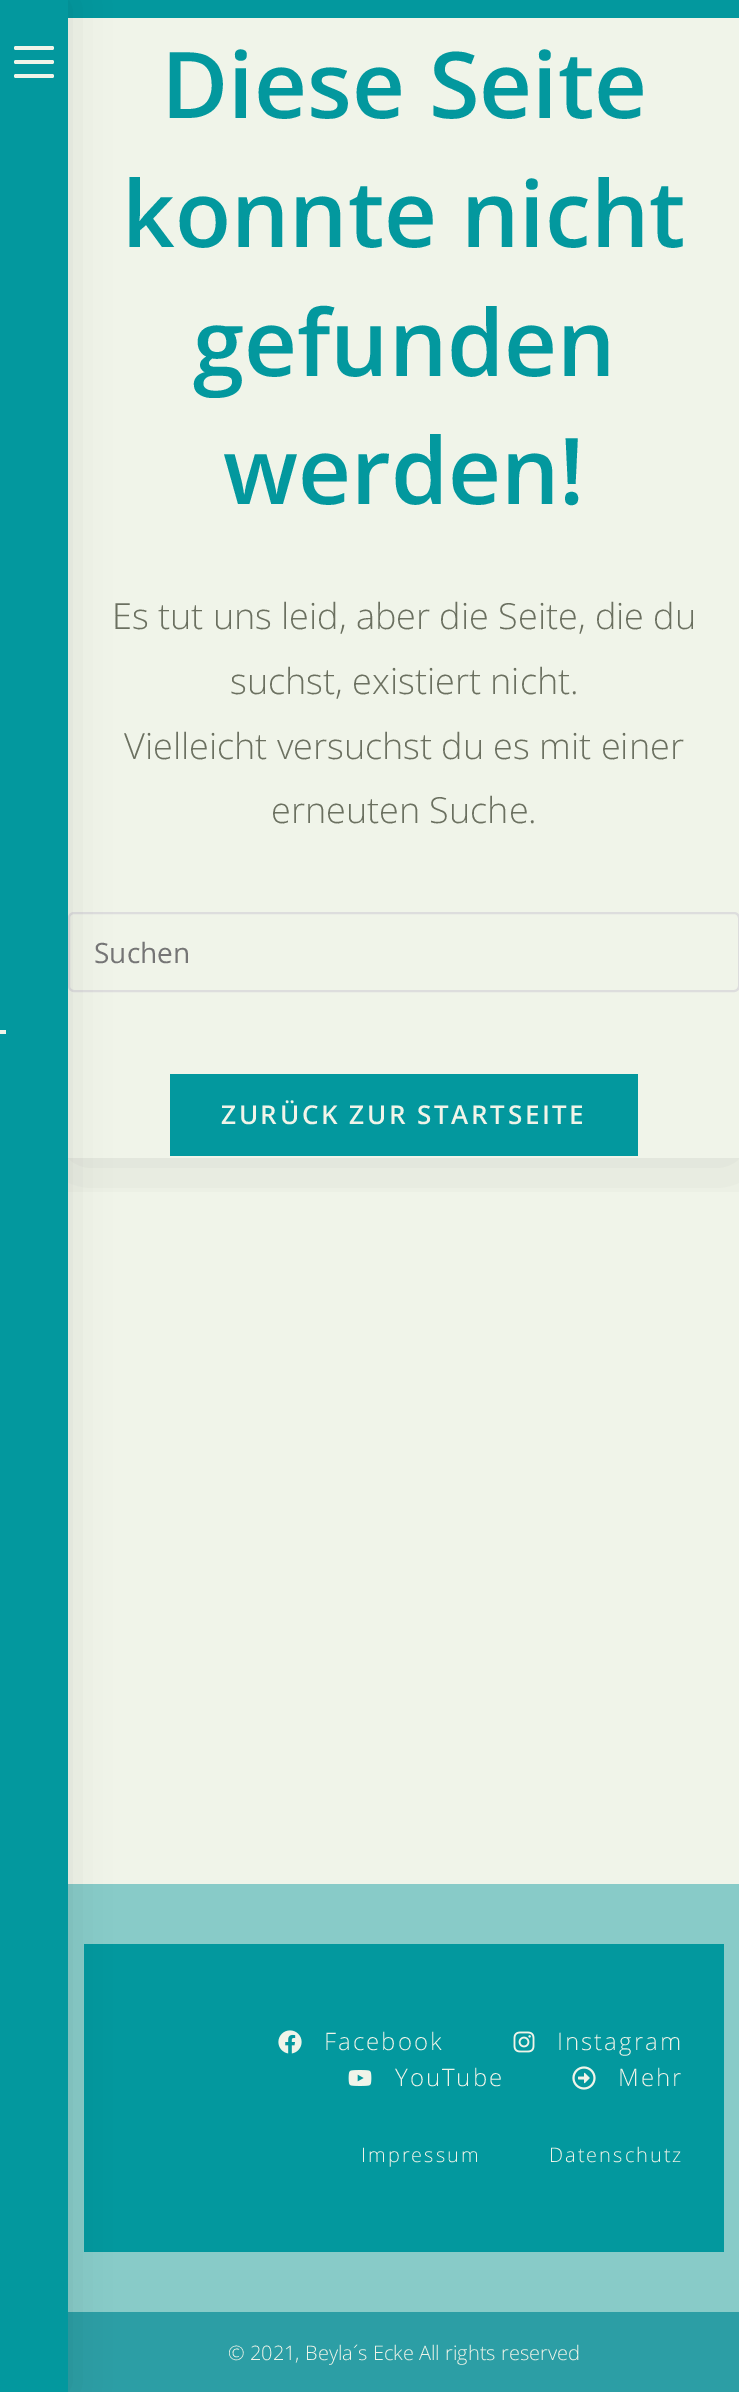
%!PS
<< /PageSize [739 2392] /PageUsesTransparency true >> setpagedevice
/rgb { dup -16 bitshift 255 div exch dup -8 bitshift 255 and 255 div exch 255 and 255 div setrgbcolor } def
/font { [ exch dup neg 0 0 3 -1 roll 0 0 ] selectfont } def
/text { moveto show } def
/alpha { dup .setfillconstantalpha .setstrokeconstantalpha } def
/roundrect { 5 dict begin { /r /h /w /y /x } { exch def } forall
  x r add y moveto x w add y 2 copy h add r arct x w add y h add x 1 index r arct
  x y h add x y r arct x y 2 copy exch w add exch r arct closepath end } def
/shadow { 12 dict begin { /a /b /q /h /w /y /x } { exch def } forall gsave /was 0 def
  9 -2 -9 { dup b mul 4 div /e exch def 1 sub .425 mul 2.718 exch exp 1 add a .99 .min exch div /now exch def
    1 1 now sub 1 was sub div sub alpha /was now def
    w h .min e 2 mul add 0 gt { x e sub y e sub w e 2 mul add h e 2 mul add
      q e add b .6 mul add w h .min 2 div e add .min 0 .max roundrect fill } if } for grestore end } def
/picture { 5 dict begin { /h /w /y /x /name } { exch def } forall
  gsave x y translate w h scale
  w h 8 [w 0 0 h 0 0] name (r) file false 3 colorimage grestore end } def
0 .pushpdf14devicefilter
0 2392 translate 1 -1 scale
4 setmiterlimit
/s1 { /OpenSans-SemiBold 92 font 16#03989E rgb } def
/s2 { /OpenSans-Light 36 font 16#6B7060 rgb } def
/s3 { /OpenSans-Regular 28 font 16#757575 rgb } def
/s4 { /OpenSans-Light 20 font 16#F0F4E9 rgb } def
16#F0F4E9 rgb
0 0 739 2392 rectfill
gsave
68 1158 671 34 rectclip
16#000000 rgb
68 18 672 1140 0 40 0.1 shadow
grestore
16#03989E rgb
68 0 671 18 rectfill
16#DDDDDD rgb
2 setlinewidth
69 913 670 78 5 roundrect stroke
16#88CBC8 rgb
68 1884 671 428 rectfill
16#03989E rgb
84 1944 640 308 rectfill
16#2C9EA5 rgb
68 2312 671 80 rectfill
16#000000 rgb
-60 0 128 2392 0 20 0.1 shadow
16#03989E rgb
0 0 68 2392 rectfill
16#F0F4E9 rgb
14 60 40 4 2 roundrect fill
14 46 40 4 2 roundrect fill
14 74 40 4 2 roundrect fill
0 1030 6 4 rectfill
s1
(Diese Seite) 161 118 text
(konnte nicht) 122 247 text
(gefunden) 193 376 text
(werden!) 223 504 text
s2
(Es tut uns leid, aber die Seite, die du) 112 629 text
(suchst, existiert nicht.) 230 694 text
(Vielleicht versuchst du es mit einer) 124 759 text
(erneuten Suche.) 271 823 text
s3
(Suchen) 94 963 text
16#03989E rgb
170 1074 468 82 rectfill
/OpenSans-SemiBold 26 font
16#F0F4E9 rgb
221 1124 moveto 2.6 0 (ZURÜCK ZUR STARTSEITE) ashow
(pic1.raw) 278 2030 24 24 picture
/OpenSans-LightItalic 24 font
324 2050 moveto 2 0 (Facebook) ashow
(pic2.raw) 513 2031 22 22 picture
557 2050 moveto 2 0 (Instagram) ashow
(pic3.raw) 348 2070 24 16 picture
395 2086 moveto 2 0 (YouTube) ashow
(pic4.raw) 572 2066 24 24 picture
618 2086 moveto 2 0 (Mehr) ashow
/OpenSans-LightItalic 20 font
361 2162 moveto 2 0 (Impressum) ashow
549 2162 moveto 2 0 (Datenschutz) ashow
s4
(© 2021, Beyla´s Ecke All rights reserved) 228 2360 text
.poppdf14devicefilter showpage
